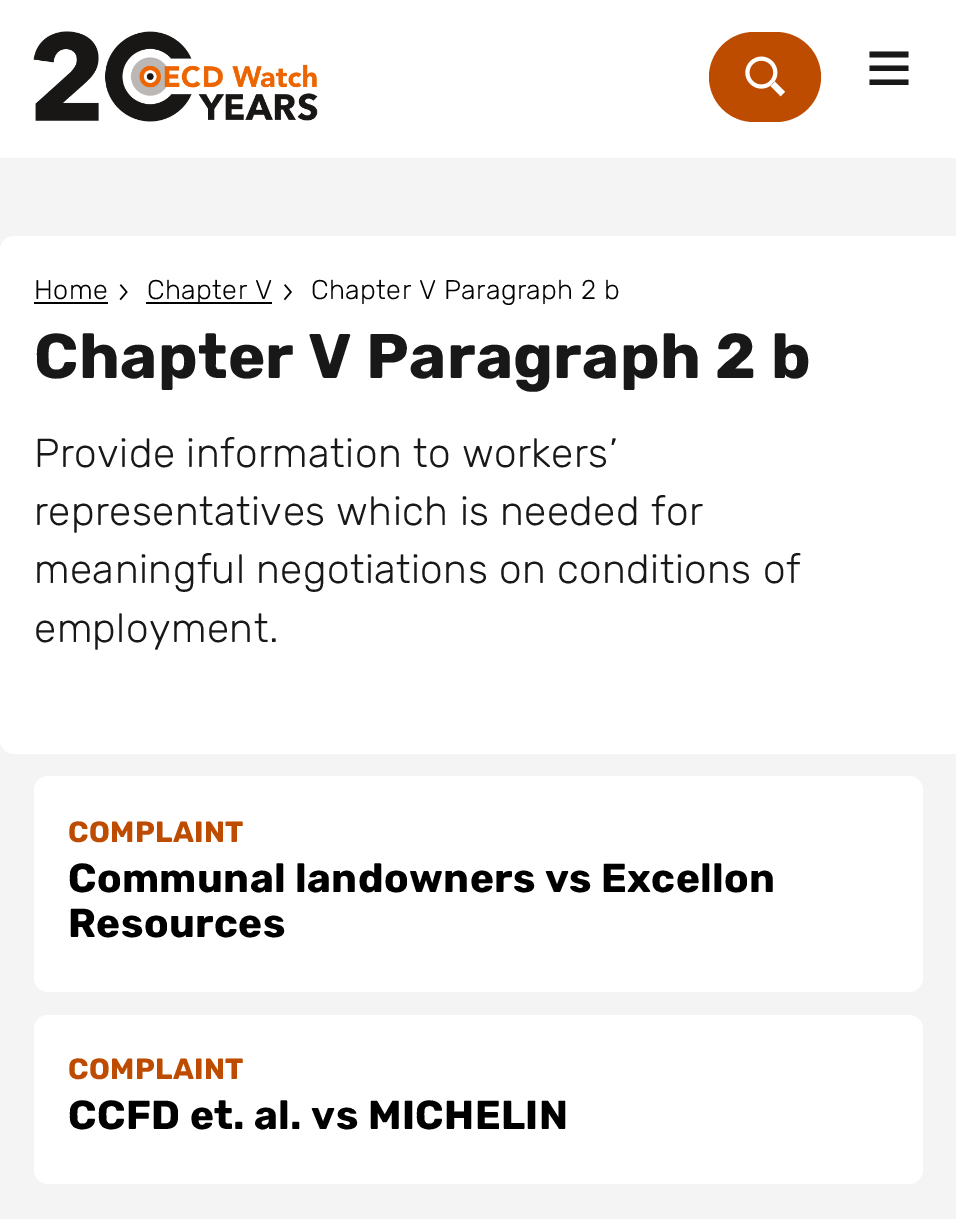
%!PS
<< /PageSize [956 1219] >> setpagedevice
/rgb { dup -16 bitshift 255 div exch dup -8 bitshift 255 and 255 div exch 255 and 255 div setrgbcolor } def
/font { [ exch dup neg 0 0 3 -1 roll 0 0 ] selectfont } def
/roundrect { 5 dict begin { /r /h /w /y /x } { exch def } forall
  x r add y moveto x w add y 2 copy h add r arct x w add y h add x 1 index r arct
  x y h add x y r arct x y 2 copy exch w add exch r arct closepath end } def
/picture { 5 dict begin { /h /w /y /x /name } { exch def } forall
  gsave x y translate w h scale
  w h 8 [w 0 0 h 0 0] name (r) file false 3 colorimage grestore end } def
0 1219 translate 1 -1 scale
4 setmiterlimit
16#F4F4F4 rgb
0 0 956 1219 rectfill
16#FFFFFF rgb
0 0 956 158 rectfill
(pic1.raw) 33 31 285 91 picture
16#BD4B00 rgb
709 32 112 90 45 roundrect fill
(pic2.raw) 745 56 41 41 picture
16#181818 rgb
869.5 51.5 moveto 908.5 51.5 lineto 908.5 57.5 lineto 869.5 57.5 lineto closepath 869.5 79.5 moveto 908.5 79.5 lineto 908.5 85 lineto 869.5 85 lineto closepath 869.5 65.5 moveto 908.5 65.5 lineto 908.5 71 lineto 869.5 71 lineto closepath fill
16#FFFFFF rgb
14 236 moveto 956 236 lineto 956 754 lineto 14 754 lineto 6.5 754 0 747.5 0 740 curveto 0 250 lineto 0 242.5 6.5 236 14 236 curveto closepath fill
/Rubik-Light 27 font
16#000000 rgb
34 299 moveto 0.4 0 (Home) ashow
34 302 74 2 rectfill
(pic3.raw) 119 284 9 17 picture
146 302 126 2 rectfill
147 299 moveto 0.4 0 (Chapter V) ashow
(pic4.raw) 283 284 9 17 picture
311 299 moveto 0.4 0 (Chapter V Paragraph 2 b) ashow
/Rubik-Bold 63 font
16#181818 rgb
34 378 moveto 0.4 0 (Chapter V Paragraph 2 b) ashow
/Rubik-Light 40.5 font
34 467 moveto 0.4 0 (Provide information to workers’) ashow
34 525 moveto 0.4 0 (representatives which is needed for) ashow
34 583 moveto 0.4 0 (meaningful negotiations on conditions of) ashow
34 642 moveto 0.4 0 (employment.) ashow
16#FFFFFF rgb
34 776 889 216 14 roundrect fill
/Rubik-Bold 29.25 font
16#BD4B00 rgb
68 842 moveto 0.4 0 (COMPLAINT) ashow
/Rubik-Bold 40.5 font
16#000000 rgb
68 892 moveto 0.4 0 (Communal landowners vs Excellon) ashow
68 937 moveto 0.4 0 (Resources) ashow
16#FFFFFF rgb
34 1015 889 169 14 roundrect fill
/Rubik-Bold 29.25 font
16#BD4B00 rgb
68 1079 moveto 0.4 0 (COMPLAINT) ashow
/Rubik-Bold 40.5 font
16#000000 rgb
68 1129 moveto 0.4 0 (CCFD et. al. vs MICHELIN) ashow
showpage
